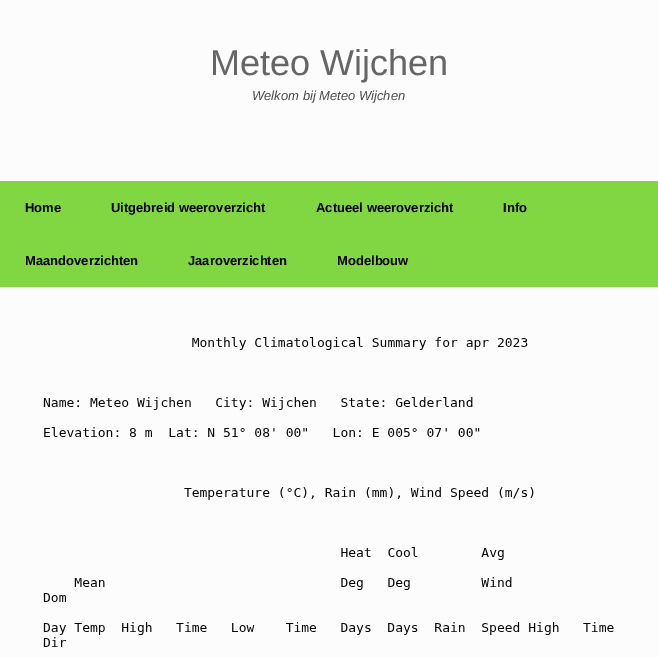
%!PS
<< /PageSize [658 657] >> setpagedevice
/rgb { dup -16 bitshift 255 div exch dup -8 bitshift 255 and 255 div exch 255 and 255 div setrgbcolor } def
/font { [ exch dup neg 0 0 3 -1 roll 0 0 ] selectfont } def
/text { moveto show } def
/picture { 5 dict begin { /h /w /y /x /name } { exch def } forall
  gsave x y translate w h scale
  w h 8 [w 0 0 h 0 0] name (r) file false 3 colorimage grestore end } def
0 657 translate 1 -1 scale
4 setmiterlimit
/s1 { /LiberationSans-Regular 36 font 16#666666 rgb } def
/s2 { /LiberationSans-Italic 13 font 16#4B4B4B rgb } def
/s3 { /LiberationSans-Bold 13 font 16#000000 rgb } def
16#FCFCFC rgb
0 0 658 657 rectfill
s1
(Meteo Wijchen) 210 75 text
s2
(Welkom bij Meteo Wijchen) 252 100 text
16#81D742 rgb
0 181 658 106 rectfill
s3
(Home) 25 212 text
(Uitgebreid weeroverzicht) 111 212 text
(Actueel weeroverzicht) 316 212 text
(Info) 503 212 text
(Maandoverzichten) 25 265 text
(Jaaroverzichten) 188 265 text
(Modelbouw) 337 265 text
(pic1.raw) 43 337 571 310 picture
showpage
